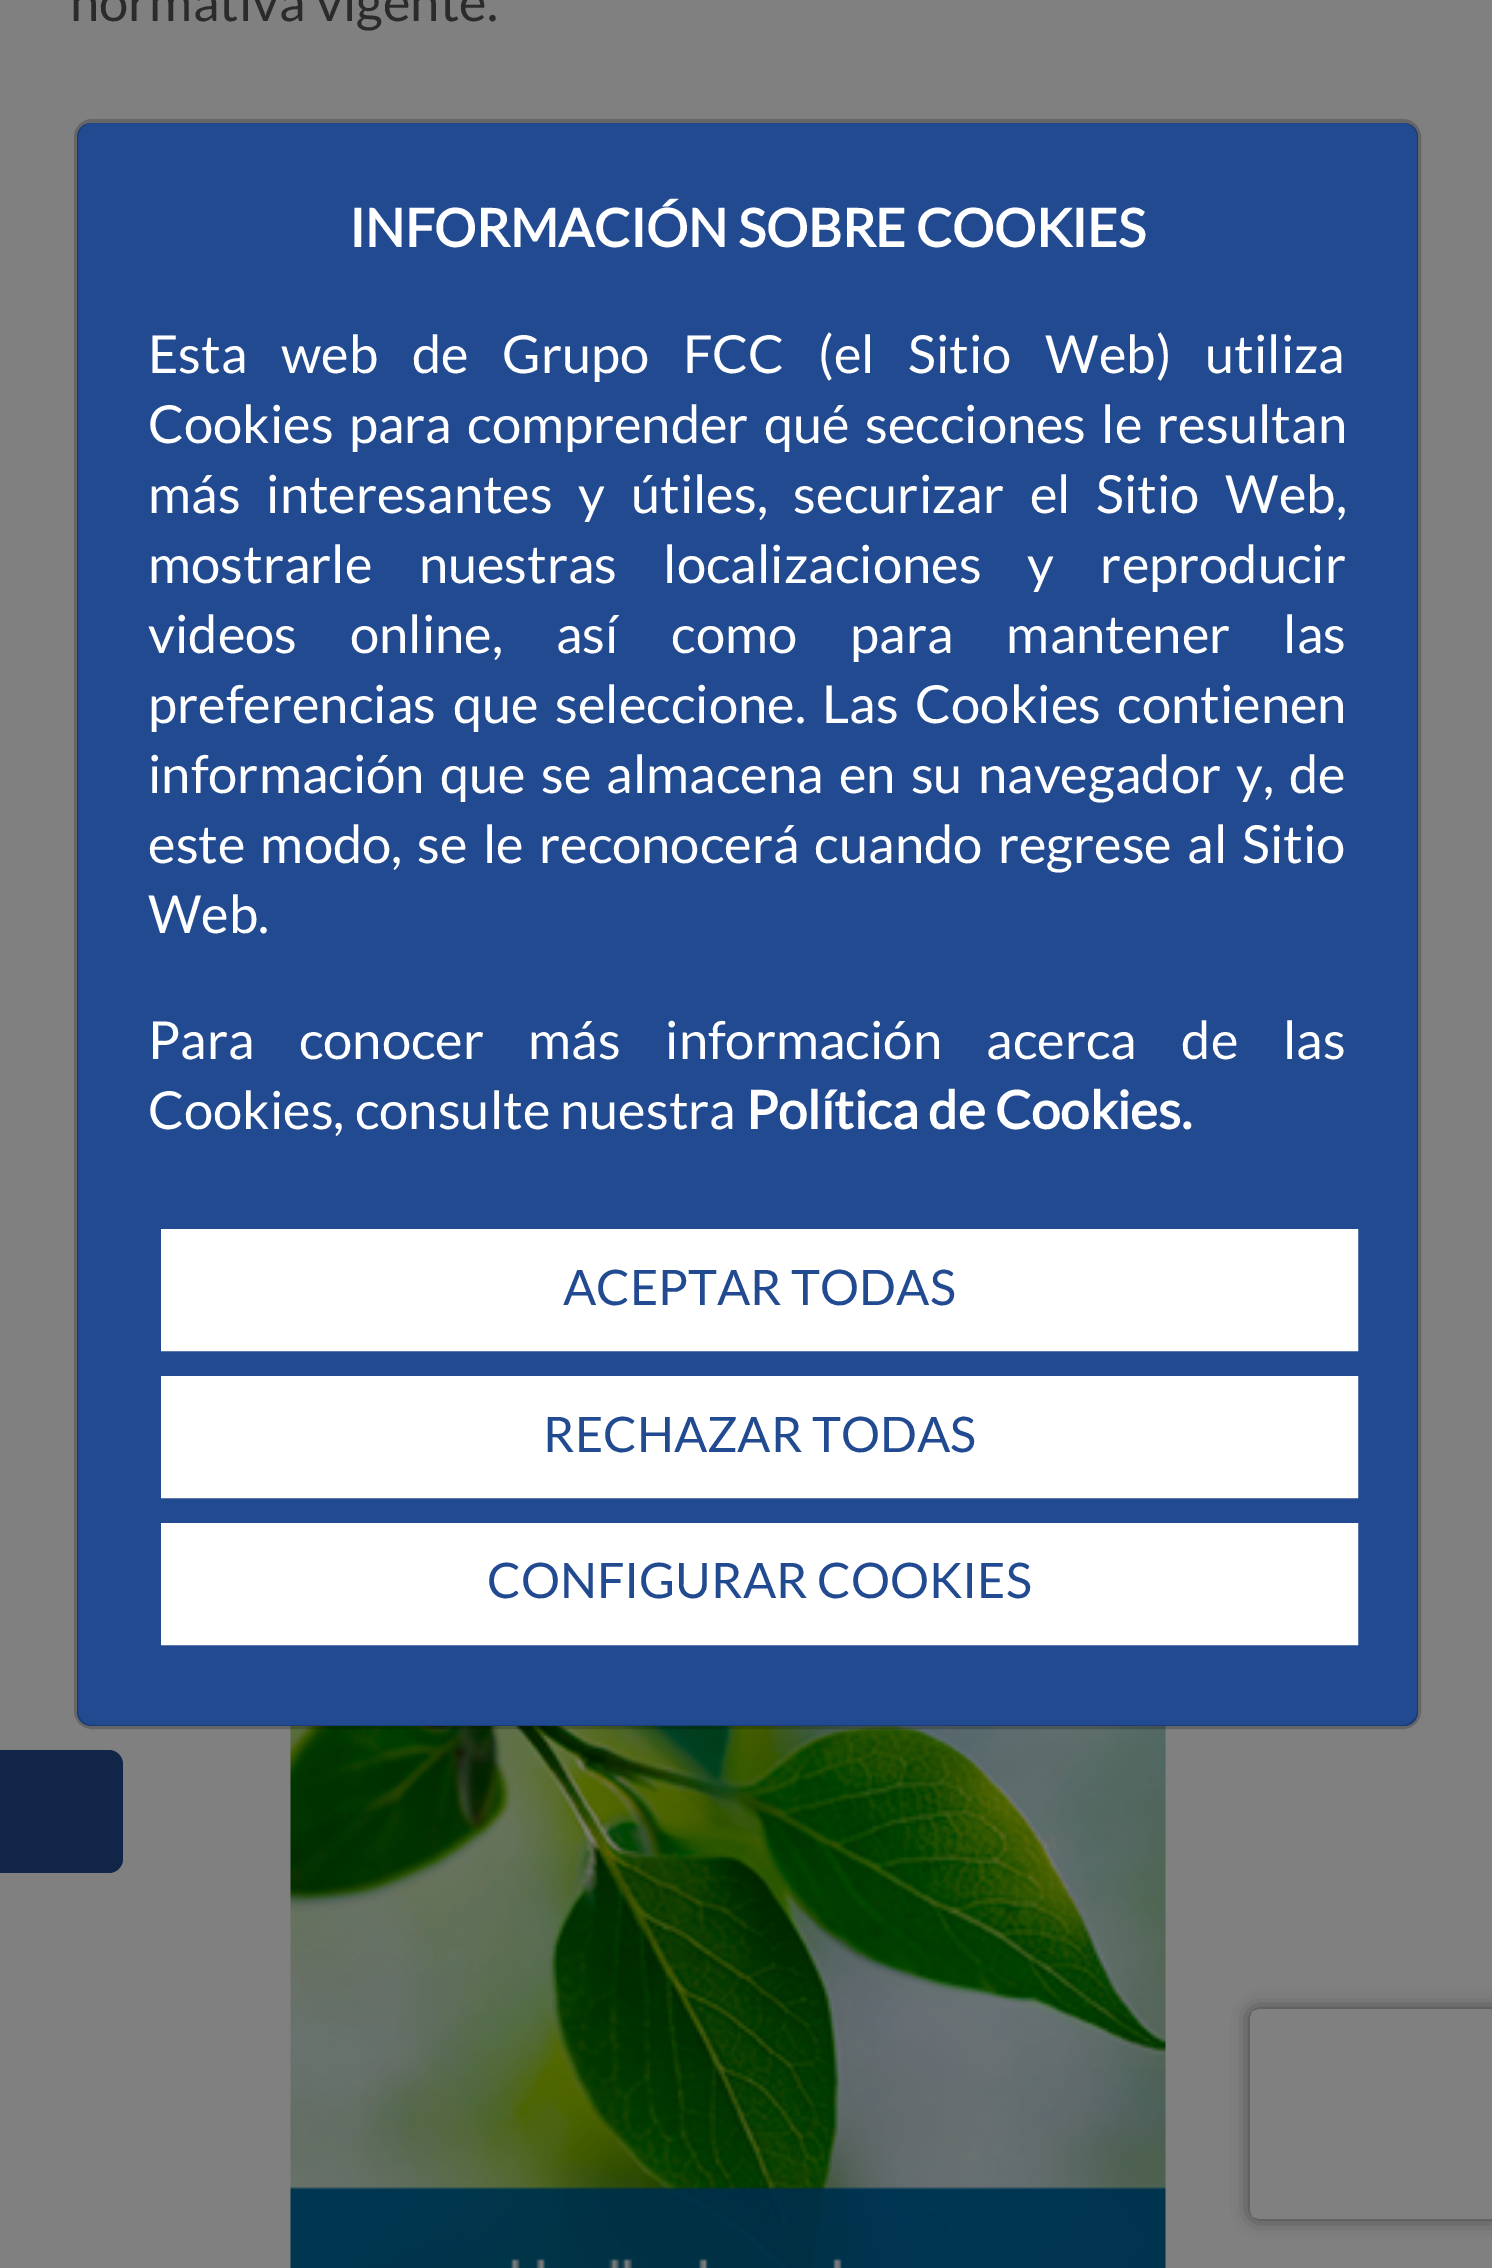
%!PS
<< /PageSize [1492 2268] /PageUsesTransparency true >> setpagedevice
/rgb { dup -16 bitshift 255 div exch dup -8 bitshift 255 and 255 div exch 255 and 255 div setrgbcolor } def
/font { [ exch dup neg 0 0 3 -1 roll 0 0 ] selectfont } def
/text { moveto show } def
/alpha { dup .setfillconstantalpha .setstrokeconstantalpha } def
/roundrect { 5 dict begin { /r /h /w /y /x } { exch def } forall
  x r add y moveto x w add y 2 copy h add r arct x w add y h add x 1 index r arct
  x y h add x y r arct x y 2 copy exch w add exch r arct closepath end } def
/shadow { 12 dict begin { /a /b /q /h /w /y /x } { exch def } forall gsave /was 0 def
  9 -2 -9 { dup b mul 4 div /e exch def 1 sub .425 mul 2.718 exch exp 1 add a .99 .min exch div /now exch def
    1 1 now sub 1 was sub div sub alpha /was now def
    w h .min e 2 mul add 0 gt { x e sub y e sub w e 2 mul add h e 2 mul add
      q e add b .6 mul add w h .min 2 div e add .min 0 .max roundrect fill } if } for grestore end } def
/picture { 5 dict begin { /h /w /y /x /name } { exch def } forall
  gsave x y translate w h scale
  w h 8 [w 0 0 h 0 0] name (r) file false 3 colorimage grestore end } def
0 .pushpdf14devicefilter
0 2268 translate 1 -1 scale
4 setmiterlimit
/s1 { /Lato-Regular 52.5 font 16#2B2B2B rgb } def
/s2 { /Lato-Bold 52.5 font 16#FFFFFF rgb } def
/s3 { /Lato-Regular 52.5 font 16#FFFFFF rgb } def
/s4 { /Lato-Regular 49 font 16#224A91 rgb } def
16#808080 rgb
0 0 1492 2268 rectfill
s1
(normativa vigente.) 70 21 text
(pic1.raw) 290 1726 876 542 picture
16#224A91 rgb
77 123 1341 1603 14 roundrect fill
0.2 alpha
16#000000 rgb
4 setlinewidth
76 121 1343 1606 16 roundrect stroke
1 alpha
s2
(INFORMACIÓN SOBRE COOKIES) 349 247 text
/Lato-Regular 52.5 font
148 373 moveto 23.5 0 32 (Esta web de Grupo FCC \(el Sitio Web\) utiliza) widthshow
148 443 moveto 5 0 32 (Cookies para comprender qué secciones le resultan) widthshow
148 513 moveto 15.5 0 32 (más interesantes y útiles, securizar el Sitio Web,) widthshow
148 583 moveto 36 0 32 (mostrarle nuestras localizaciones y reproducir) widthshow
148 653 moveto 42.75 0 32 (videos online, así como para mantener las) widthshow
148 723 moveto 6.5 0 32 (preferencias que seleccione. Las Cookies contienen) widthshow
148 793 moveto 5 0 32 (información que se almacena en su navegador y, de) widthshow
148 863 moveto 5 0 32 (este modo, se le reconocerá cuando regrese al Sitio) widthshow
(Web.) 148 933 text
148 1059 moveto 34.25 0 32 (Para conocer más información acerca de las) widthshow
(Cookies, consulte nuestra) 148 1129 text
s2
(Política de Cookies.) 746 1129 text
163 1231 moveto 1356 1231 lineto 1356 1349 lineto 163 1349 lineto closepath gsave fill grestore
stroke
s4
(ACEPTAR TODAS) 563 1305 text
16#FFFFFF rgb
163 1378 moveto 1356 1378 lineto 1356 1496 lineto 163 1496 lineto closepath gsave fill grestore
stroke
s4
(RECHAZAR TODAS) 543 1452 text
16#FFFFFF rgb
163 1525 moveto 1356 1525 lineto 1356 1643 lineto 163 1643 lineto closepath gsave fill grestore
stroke
s4
(CONFIGURAR COOKIES) 487 1598 text
16#112549 rgb
0 1750 moveto 109 1750 lineto 116.5 1750 123 1756.5 123 1764 curveto 123 1859 lineto 123 1866.5 116.5 1873 109 1873 curveto 0 1873 lineto closepath fill
gsave
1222 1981 moveto 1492 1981 lineto 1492 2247 lineto 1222 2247 lineto closepath 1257 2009 moveto 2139 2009 lineto 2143 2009 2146 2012 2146 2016 curveto 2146 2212 lineto 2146 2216 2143 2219 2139 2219 curveto 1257 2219 lineto 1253 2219 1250 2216 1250 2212 curveto 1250 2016 lineto 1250 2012 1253 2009 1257 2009 curveto closepath eoclip newpath
16#404040 rgb
1250 2009 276 210 7 9 1 shadow
grestore
.poppdf14devicefilter showpage
